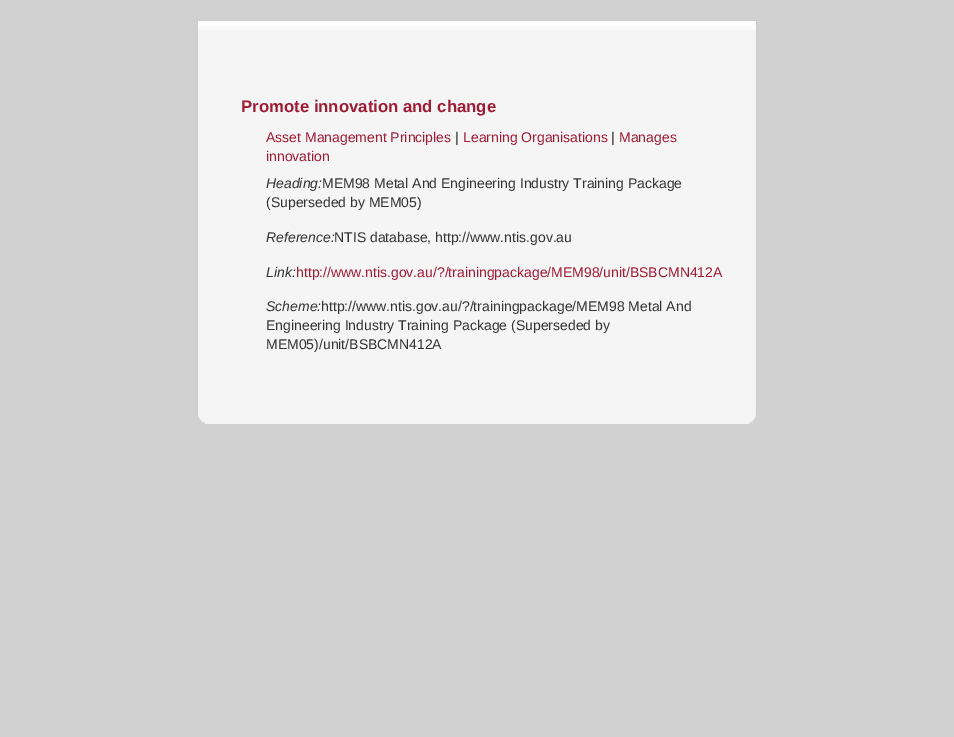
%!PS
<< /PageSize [954 737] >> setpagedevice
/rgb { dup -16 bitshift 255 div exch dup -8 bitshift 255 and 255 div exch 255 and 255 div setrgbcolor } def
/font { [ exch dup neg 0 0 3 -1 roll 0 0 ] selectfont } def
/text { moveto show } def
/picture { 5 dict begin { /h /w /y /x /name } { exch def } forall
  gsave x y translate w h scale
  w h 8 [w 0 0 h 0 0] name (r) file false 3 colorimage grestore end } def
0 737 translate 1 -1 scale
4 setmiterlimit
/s1 { /LiberationSans-Bold 16.75 font 16#9E1B34 rgb } def
/s2 { /LiberationSans-Regular 14 font 16#9E1B34 rgb } def
/s3 { /LiberationSans-Regular 14 font 16#333333 rgb } def
/s4 { /LiberationSans-Italic 14 font 16#333333 rgb } def
16#D1D1D1 rgb
0 0 954 737 rectfill
16#F5F5F5 rgb
198 30 558 384 rectfill
(pic1.raw) 198 21 558 9 picture
16#CCCCCC rgb
197 20 560 1 rectfill
756 20 1 394 rectfill
197 20 1 394 rectfill
s1
(Promote innovation and change) 241 112 text
s2
(Asset Management Principles) 266 142 text
s3
(|) 455 142 text
s2
(Learning Organisations) 463 142 text
s3
(|) 611 142 text
s2
(Manages) 619 142 text
(innovation) 266 161 text
s4
(Heading:) 266 188 text
s3
(MEM98 Metal And Engineering Industry Training Package) 322 188 text
(\(Superseded by MEM05\)) 266 207 text
s4
(Reference:) 266 242 text
s3
(NTIS database, http://www.ntis.gov.au) 334 242 text
s4
(Link:) 266 277 text
s2
(http://www.ntis.gov.au/?/trainingpackage/MEM98/unit/BSBCMN412A) 296 277 text
s4
(Scheme:) 266 311 text
s3
(http://www.ntis.gov.au/?/trainingpackage/MEM98 Metal And) 321 311 text
(Engineering Industry Training Package \(Superseded by) 266 330 text
(MEM05\)/unit/BSBCMN412A) 266 349 text
(pic2.raw) 197 414 8 10 picture
16#F5F5F5 rgb
205 414 544 10 rectfill
(pic3.raw) 749 414 8 10 picture
showpage
